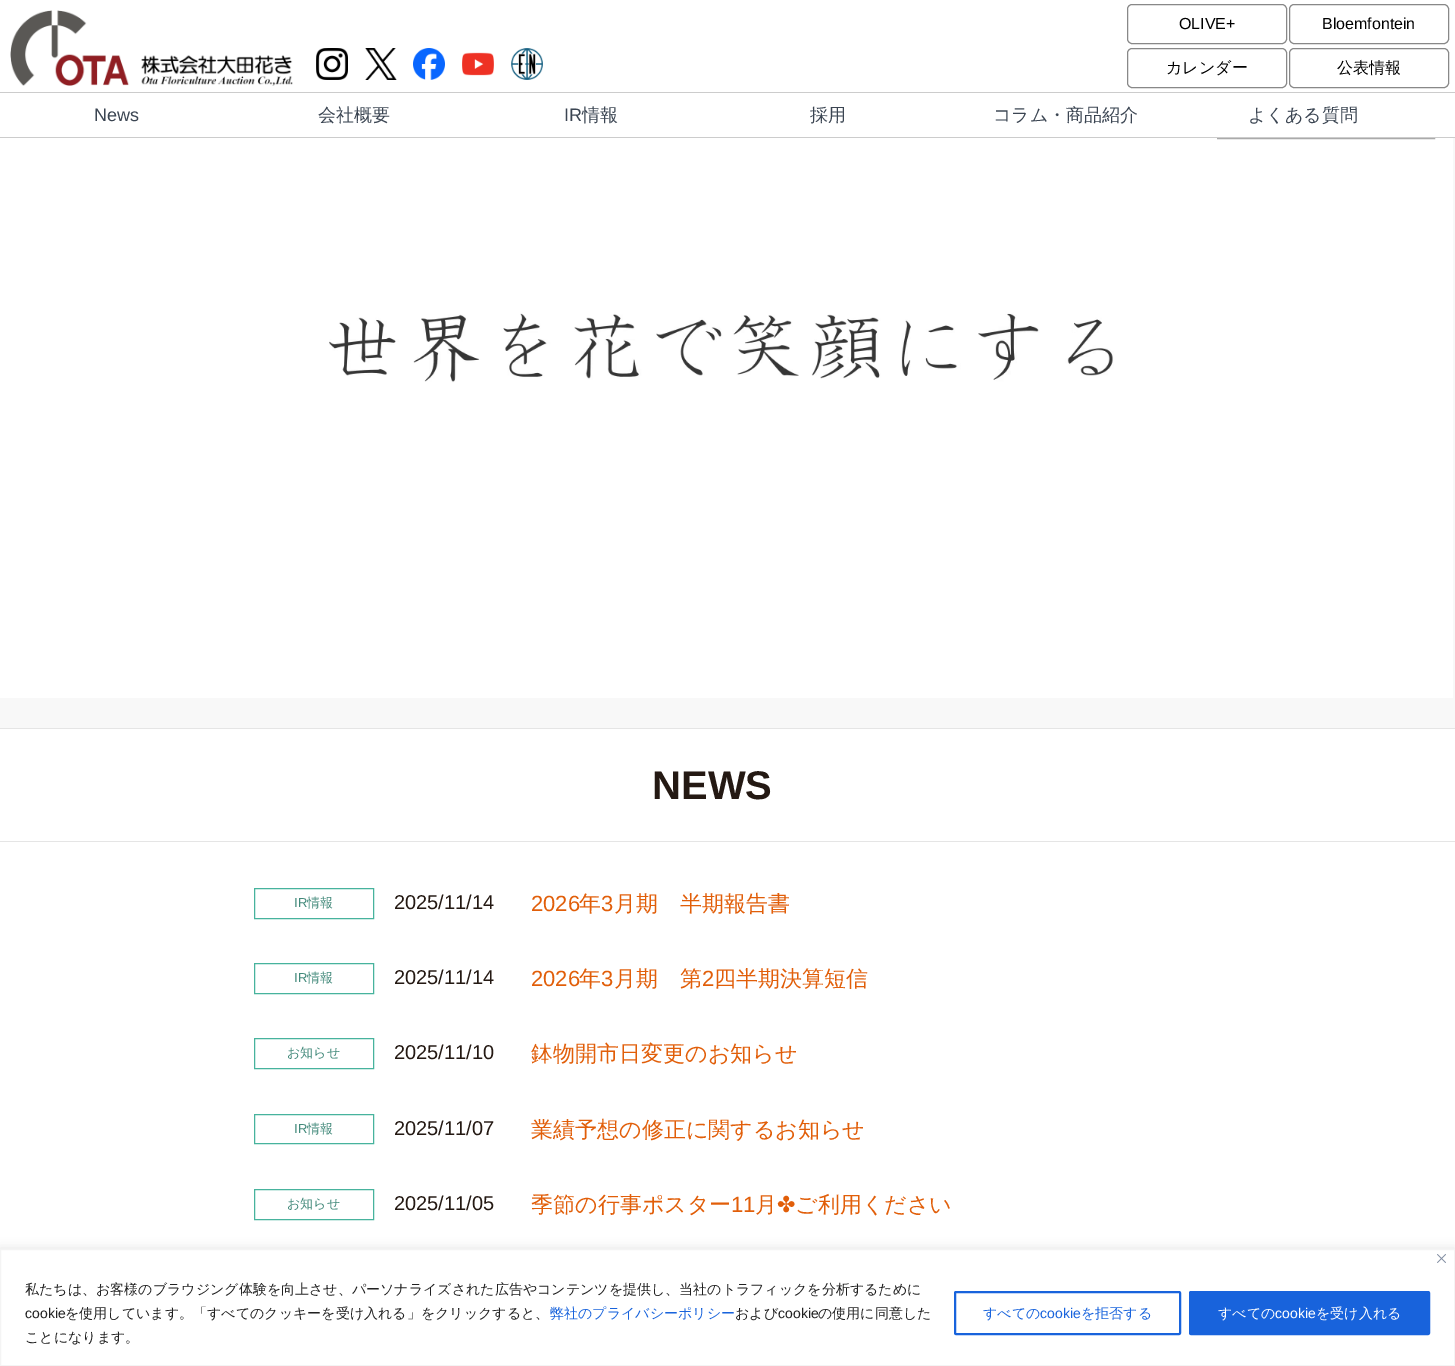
%!PS
<< /PageSize [1455 1366] /PageUsesTransparency true >> setpagedevice
/rgb { dup -16 bitshift 255 div exch dup -8 bitshift 255 and 255 div exch 255 and 255 div setrgbcolor } def
/font { [ exch dup neg 0 0 3 -1 roll 0 0 ] selectfont } def
/text { moveto show } def
/alpha { dup .setfillconstantalpha .setstrokeconstantalpha } def
/roundrect { 5 dict begin { /r /h /w /y /x } { exch def } forall
  x r add y moveto x w add y 2 copy h add r arct x w add y h add x 1 index r arct
  x y h add x y r arct x y 2 copy exch w add exch r arct closepath end } def
/shadow { 12 dict begin { /a /b /q /h /w /y /x } { exch def } forall gsave /was 0 def
  9 -2 -9 { dup b mul 4 div /e exch def 1 sub .425 mul 2.718 exch exp 1 add a .99 .min exch div /now exch def
    1 1 now sub 1 was sub div sub alpha /was now def
    w h .min e 2 mul add 0 gt { x e sub y e sub w e 2 mul add h e 2 mul add
      q e add b .6 mul add w h .min 2 div e add .min 0 .max roundrect fill } if } for grestore end } def
/picture { 5 dict begin { /h /w /y /x /name } { exch def } forall
  gsave x y translate w h scale
  w h 8 [w 0 0 h 0 0] name (r) file false 3 colorimage grestore end } def
0 .pushpdf14devicefilter
0 1366 translate 1 -1 scale
4 setmiterlimit
/s1 { /LiberationSans-Regular 16 font 16#000000 rgb } def
/s2 { /WenQuanYiZenHei-Medium 16 font 16#000000 rgb } def
/s3 { /LiberationSans-Regular 18 font 16#3B4552 rgb } def
/s4 { /WenQuanYiZenHei-Medium 18 font 16#3B4552 rgb } def
/s5 { /LiberationSans-Bold 40 font 16#241913 rgb } def
/s6 { /LiberationSans-Regular 13 font 16#42897A rgb } def
/s7 { /WenQuanYiZenHei-Medium 13 font 16#42897A rgb } def
/s8 { /LiberationSans-Regular 20 font 16#241913 rgb } def
/s9 { /LiberationSans-Regular 22 font 16#E15E09 rgb } def
/s10 { /WenQuanYiZenHei-Medium 22 font 16#E15E09 rgb } def
/s11 { /DejaVuSans-Regular 22 font 16#E15E09 rgb } def
/s12 { /WenQuanYiZenHei-Medium 14 font 16#212121 rgb } def
/s13 { /LiberationSans-Regular 14 font 16#212121 rgb } def
/s14 { /WenQuanYiZenHei-Medium 14 font 16#1863DC rgb } def
/s15 { /LiberationSans-Regular 14 font 16#1863DC rgb } def
/s16 { /WenQuanYiZenHei-Medium 14 font 16#FFFFFF rgb } def
/s17 { /LiberationSans-Regular 14 font 16#FFFFFF rgb } def
16#F8F8F8 rgb
0 0 1455 1366 rectfill
(pic7.raw) 0 138 1453 560 picture
16#AAAAAA rgb
1217.5 48.5 217 90 rectstroke
16#FFFFFF rgb
0 0 1455 137 rectfill
16#CCCCCC rgb
0 92 1455 1 rectfill
(pic1.raw) 10 10 283 76 picture
(pic2.raw) 316 48 32 32 picture
(pic3.raw) 365 48 32 32 picture
(pic4.raw) 413 48 32 32 picture
(pic5.raw) 462 52 32 24 picture
(pic6.raw) 511 48 32 32 picture
16#888888 rgb
1127.5 4.5 159 39 4.5 roundrect stroke
s1
(OLIVE+) 1179 29 text
16#888888 rgb
1289.5 4.5 159 39 4.5 roundrect stroke
s1
(Bloemfontein) 1322 29 text
16#888888 rgb
1127.5 48.5 159 39 4.5 roundrect stroke
s2
(カレンダー) 1166 73 text
16#888888 rgb
1289.5 48.5 159 39 4.5 roundrect stroke
s2
(公表情報) 1337 73 text
16#CCCCCC rgb
0 137 1455 1 rectfill
s3
(News) 94 121 text
s4
(会社概要) 318 121 text
s3
(IR) 564 121 text
s4
(情報) 582 121 text
(採用) 810 121 text
(コラム・商品紹介) 993 121 text
(よくある質問) 1248 121 text
16#FFFFFF rgb
0 729 1455 520 rectfill
16#E5E5E5 rgb
0 728 1455 1 rectfill
0 841 1455 1 rectfill
s5
(NEWS) 652 799 text
16#47B39D rgb
254.5 888.5 119 30 rectstroke
s6
(IR) 294 907 text
s7
(情報) 307 907 text
s8
(2025/11/14) 394 909 text
s9
(2026) 531 911 text
s10
(年) 579 911 text
s9
(3) 601 911 text
s10
(月期　半期報告書) 614 911 text
16#47B39D rgb
254.5 963.5 119 30 rectstroke
s6
(IR) 294 982 text
s7
(情報) 307 982 text
s8
(2025/11/14) 394 984 text
s9
(2026) 531 986 text
s10
(年) 579 986 text
s9
(3) 601 986 text
s10
(月期　第) 614 986 text
s9
(2) 702 986 text
s10
(四半期決算短信) 714 986 text
16#47B39D rgb
254.5 1038.5 119 30 rectstroke
s7
(お知らせ) 287 1057 text
s8
(2025/11/10) 394 1059 text
s10
(鉢物開市日変更のお知らせ) 531 1061 text
16#47B39D rgb
254.5 1114.5 119 29 rectstroke
s6
(IR) 294 1133 text
s7
(情報) 307 1133 text
s8
(2025/11/07) 394 1135 text
s10
(業績予想の修正に関するお知らせ) 531 1137 text
16#47B39D rgb
254.5 1189.5 119 30 rectstroke
s7
(お知らせ) 287 1208 text
s8
(2025/11/05) 394 1210 text
s10
(季節の行事ポスター) 531 1212 text
s9
(11) 731 1212 text
s10
(月) 755 1212 text
s11
(✤) 777 1212 text
s10
(ご利用ください) 795 1212 text
16#ACABAB rgb
0 1248 1455 117 0 5 0.3 shadow
16#FFFFFF rgb
0.5 1249.5 moveto 1454.5 1249.5 lineto 1454.5 1365.5 lineto 0.5 1365.5 lineto closepath gsave fill grestore
16#F4F4F4 rgb
stroke
(pic8.raw) 1437 1254 9 9 picture
s12
(私たちは、お客様のブラウジング体験を向上させ、パーソナライズされた広告やコンテンツを提供し、当社のトラフィックを分析するために) 25 1294 text
s13
(cookie) 25 1318 text
s12
(を使用しています。「すべてのクッキーを受け入れる」をクリックすると、) 65 1318 text
s14
(弊社のプライバシーポリシー) 550 1318 text
s12
(および) 735 1318 text
s13
(cookie) 778 1318 text
s12
(の使用に同意した) 818 1318 text
(ことになります。) 25 1342 text
16#1863DC rgb
2 setlinewidth
955 1292 225 42 1 roundrect stroke
(すべての) 983 1318 text
s15
(cookie) 1040 1318 text
s14
(を拒否する) 1081 1318 text
1190 1292 239 42 1 roundrect gsave fill grestore
stroke
s16
(すべての) 1218 1318 text
s17
(cookie) 1275 1318 text
s16
(を受け入れる) 1316 1318 text
.poppdf14devicefilter showpage
